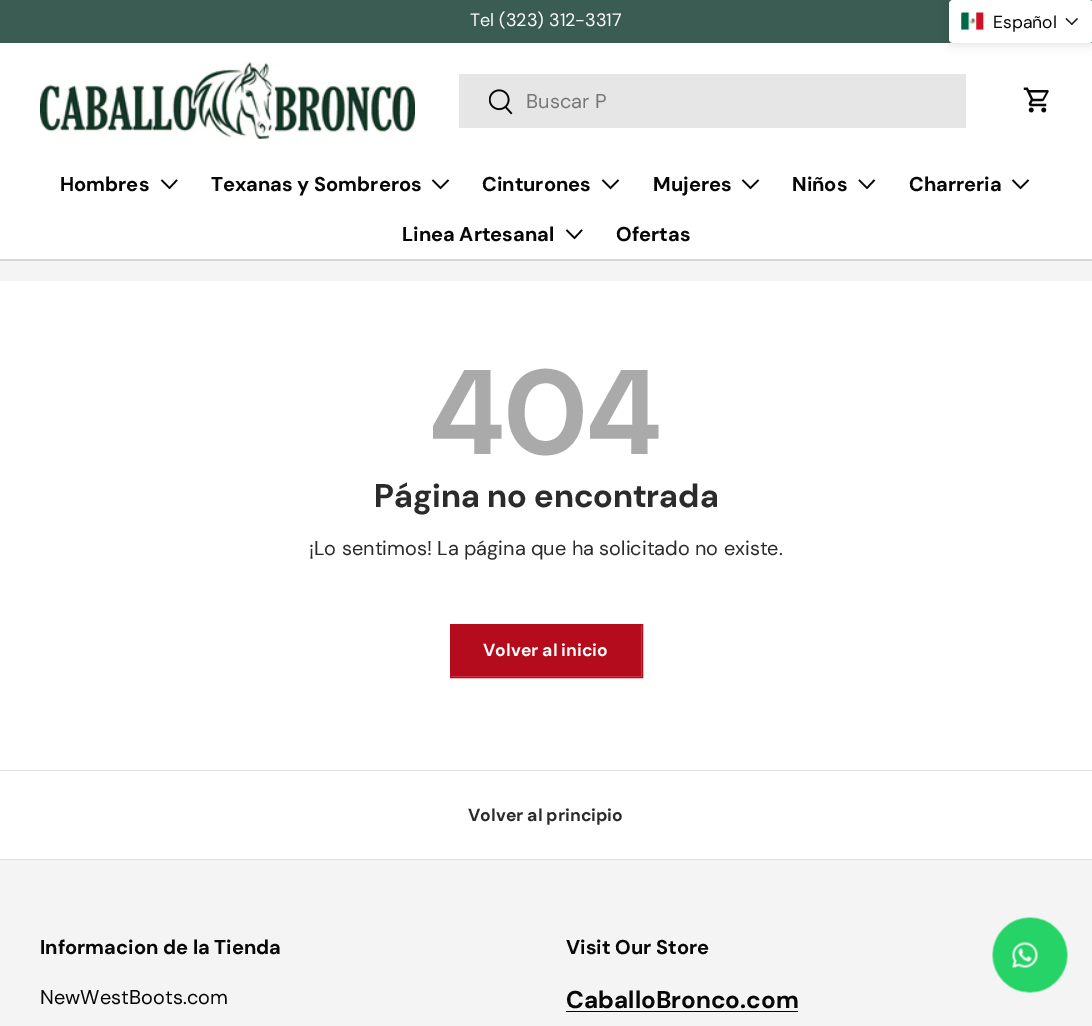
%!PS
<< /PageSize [1092 1026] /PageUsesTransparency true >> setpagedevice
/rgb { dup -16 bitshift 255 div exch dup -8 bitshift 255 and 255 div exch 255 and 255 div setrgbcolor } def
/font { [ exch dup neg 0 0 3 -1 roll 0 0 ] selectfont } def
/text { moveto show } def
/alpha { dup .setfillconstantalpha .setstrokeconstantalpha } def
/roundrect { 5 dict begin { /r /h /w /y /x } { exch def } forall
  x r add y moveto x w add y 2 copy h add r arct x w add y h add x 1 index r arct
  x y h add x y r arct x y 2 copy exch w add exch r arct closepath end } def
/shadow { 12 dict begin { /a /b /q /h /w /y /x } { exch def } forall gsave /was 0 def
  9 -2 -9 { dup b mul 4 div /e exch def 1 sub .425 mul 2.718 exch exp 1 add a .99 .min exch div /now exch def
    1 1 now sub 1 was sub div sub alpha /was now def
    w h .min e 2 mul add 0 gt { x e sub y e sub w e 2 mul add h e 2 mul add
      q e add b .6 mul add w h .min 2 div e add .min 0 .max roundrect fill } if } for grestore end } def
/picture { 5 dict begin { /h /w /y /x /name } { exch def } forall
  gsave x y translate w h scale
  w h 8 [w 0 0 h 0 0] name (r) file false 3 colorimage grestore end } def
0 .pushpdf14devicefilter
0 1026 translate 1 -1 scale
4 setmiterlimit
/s1 { /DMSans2-Regular 18 font 16#FFFFFF rgb } def
/s2 { /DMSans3-Regular 17.5 font 16#070707 rgb } def
/s3 { /DMSans-Regular 20 font 16#777777 rgb } def
/s4 { /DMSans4-Bold 20 font 16#070707 rgb } def
/s5 { /DMSans-Bold 120 font 16#AAAAAA rgb } def
/s6 { /DMSans2-Bold 32.75 font 16#2A2B2A rgb } def
/s7 { /DMSans-Regular 20 font 16#2A2B2A rgb } def
/s8 { /DMSans3-Bold 17.5 font 16#FFFFFF rgb } def
/s9 { /DMSans3-Bold 17.5 font 16#2A2B2A rgb } def
/s10 { /DMSans-Regular 20 font 16#070707 rgb } def
/s11 { /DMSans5-Bold 24.25 font 16#070707 rgb } def
16#FFFFFF rgb
0 0 1092 1026 rectfill
16#3B5C53 rgb
0 0 1092 43 rectfill
s1
(Tel \(323\) 312-3317) 470 26 text
16#000000 rgb
949 0 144 43 4 6 0.15 shadow
16#FFFFFF rgb
949 0 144 43 4 roundrect fill
(pic1.raw) 961 12 24 19 picture
s2
(Español) 993 28 text
16#1A1A1A rgb
1077 18 moveto 1078 19 lineto 1072 25 lineto 1071 24 lineto closepath fill
1066.5 18 moveto 1072.5 24 lineto 1072 25 lineto 1065.5 19 lineto closepath fill
16#DADADA rgb
0 259 1092 1 rectfill
(pic2.raw) 40 62 375 77 picture
16#E6E6E6 rgb
459 74 507 54 rectfill
(pic3.raw) 489 89 24 26 picture
s3
(Buscar P) 526 108 text
(pic4.raw) 1023 87 26 26 picture
s4
(Hombres) 60 191 text
1.6 setlinewidth
177 180 moveto 169.5 188 lineto 161.5 180 lineto stroke
(Texanas y Sombreros) 211 191 text
448.5 180 moveto 440.5 188 lineto 432.5 180 lineto stroke
(Cinturones) 482 191 text
618.5 180 moveto 610.5 188 lineto 602.5 180 lineto stroke
(Mujeres) 653 191 text
758.5 180 moveto 750.5 188 lineto 742.5 180 lineto stroke
(Niños) 792 191 text
874.5 180 moveto 867 188 lineto 859 180 lineto stroke
(Charreria) 909 191 text
1028.5 180 moveto 1020.5 188 lineto 1012.5 180 lineto stroke
(Linea Artesanal) 402 241 text
582 230 moveto 574.5 238 lineto 566.5 230 lineto stroke
(Ofertas) 616 241 text
16#F4F4F4 rgb
0 261 1092 20 rectfill
16#D6D6D6 rgb
0 260 1092 1 rectfill
s5
(404) 430 454 text
s6
(Página no encontrada) 374 507 text
s7
(¡Lo sentimos! La página que ha solicitado no existe.) 309 555 text
16#CB3342 rgb
451 625 191 52 rectfill
gsave 451 625 moveto 641 625 lineto 641 676 lineto 451 676 lineto closepath clip newpath
<< /ShadingType 2 /ColorSpace /DeviceRGB /Coords [82 582 631 719] /Extend [true true] /Function << /FunctionType 3 /Domain [0 1] /Functions [<< /FunctionType 2 /Domain [0 1] /C0 [0.796 0.2 0.259] /C1 [0.796 0.2 0.259] /N 1 >> << /FunctionType 2 /Domain [0 1] /C0 [0.706 0.047 0.11] /C1 [0.706 0.047 0.11] /N 1 >>] /Bounds [0.6] /Encode [0 1 0 1] >> >> shfill grestore
16#B40C1C rgb
1 setlinewidth
450.5 624.5 192 53 rectstroke
s8
(Volver al inicio) 483 656 text
16#DFDFDF rgb
0 770 1092 1 rectfill
0 859 1092 1 rectfill
s9
(Volver al principio) 468 821 text
16#F4F4F4 rgb
0 860 1092 166 rectfill
s4
(Informacion de la Tienda) 40 954 text
s10
(NewWestBoots.com) 40 1004 text
s4
(Visit Our Store) 566 954 text
s11
(CaballoBronco.com) 566 1008 text
566 1011 232 1 rectfill
(pic5.raw) 992 917 76 76 picture
.poppdf14devicefilter showpage
